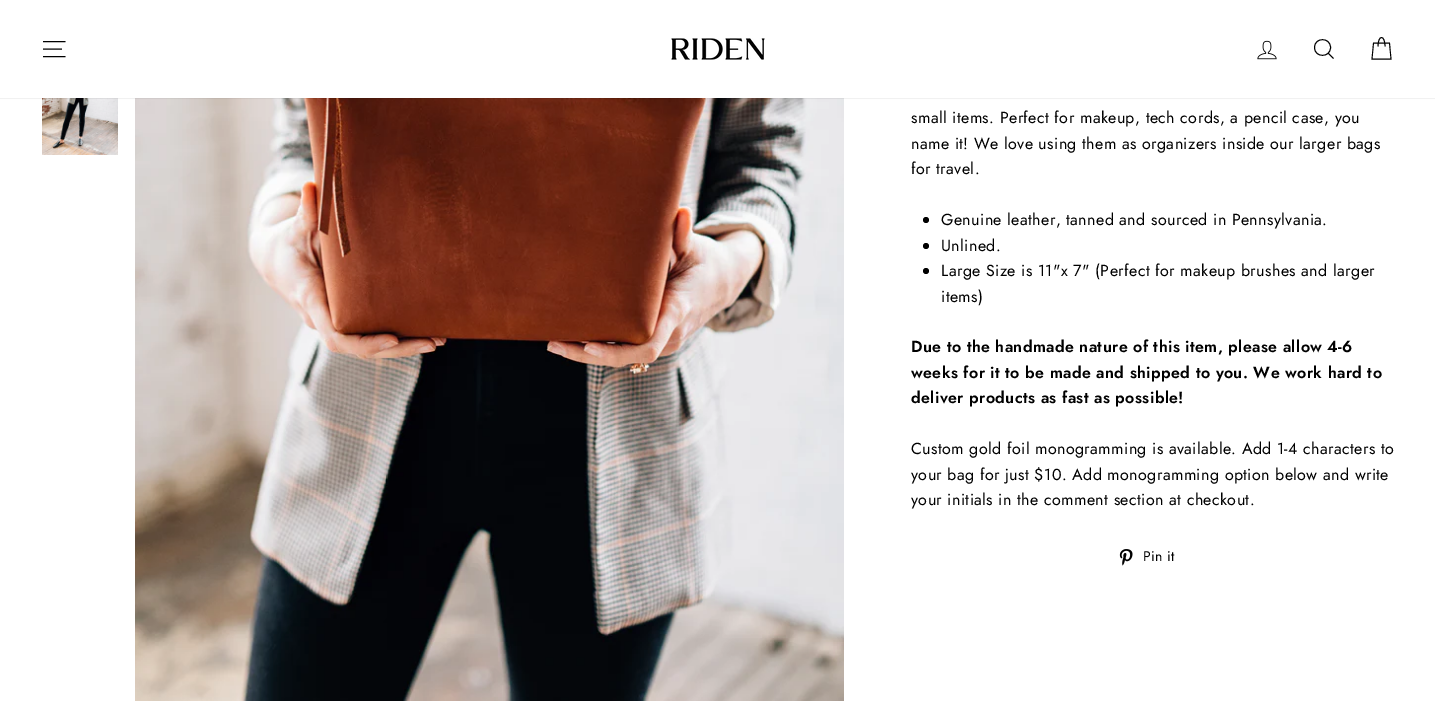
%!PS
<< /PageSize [1435 701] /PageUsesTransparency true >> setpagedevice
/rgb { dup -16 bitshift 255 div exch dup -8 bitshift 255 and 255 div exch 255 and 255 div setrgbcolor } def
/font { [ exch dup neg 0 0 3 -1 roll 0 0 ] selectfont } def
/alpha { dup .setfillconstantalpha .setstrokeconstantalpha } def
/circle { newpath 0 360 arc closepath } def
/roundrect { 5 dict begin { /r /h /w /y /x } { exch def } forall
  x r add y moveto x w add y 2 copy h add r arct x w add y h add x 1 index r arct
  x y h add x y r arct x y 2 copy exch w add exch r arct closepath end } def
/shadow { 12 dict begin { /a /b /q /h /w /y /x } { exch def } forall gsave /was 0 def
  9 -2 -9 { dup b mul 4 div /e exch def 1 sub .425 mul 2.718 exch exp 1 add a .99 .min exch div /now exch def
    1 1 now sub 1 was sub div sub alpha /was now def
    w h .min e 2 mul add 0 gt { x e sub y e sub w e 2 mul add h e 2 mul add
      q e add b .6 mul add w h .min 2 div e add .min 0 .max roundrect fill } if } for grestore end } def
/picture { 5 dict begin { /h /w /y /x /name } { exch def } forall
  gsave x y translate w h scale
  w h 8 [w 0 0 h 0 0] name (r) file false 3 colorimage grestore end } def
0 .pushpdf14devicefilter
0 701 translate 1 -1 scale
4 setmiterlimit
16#FFFFFF rgb
0 0 1435 701 rectfill
(pic3.raw) 42 98 76 57 picture
(pic4.raw) 135 98 709 603 picture
16#000000 rgb
0 0 1435 98 0 0.5 0.2 shadow
16#FFFFFF rgb
0 0 1435 98 rectfill
16#000000 rgb
0.9 setlinewidth
43 41.5 moveto 65.5 41.5 lineto 43 49 moveto 62 49 lineto 43 56.5 moveto 65.5 56.5 lineto stroke
(pic1.raw) 671 38 94 22 picture
(pic2.raw) 1257 40 20 20 picture
1330.5 47.5 moveto 1330.5 58 1314.5 58 1314.5 47.5 curveto 1314.5 37 1330.5 37 1330.5 47.5 curveto closepath 1333.5 58.5 moveto 1328.5 53.5 lineto stroke
1378 46.5 moveto 1378 34.5 1385 34.5 1385 46.5 curveto 1373.5 43 moveto 1389.5 43 lineto 1391 59 lineto 1372 59 lineto closepath stroke
/Jost-Regular 16 font
911 123 moveto 0.4 0 (small items. Perfect for makeup, tech cords, a pencil case, you) ashow
911 149 moveto 0.4 0 (name it! We love using them as organizers inside our larger bags) ashow
911 174 moveto 0.4 0 (for travel.) ashow
926 220 3 circle fill
941 225 moveto 0.4 0 (Genuine leather, tanned and sourced in Pennsylvania.) ashow
926 246 3 circle fill
941 251 moveto 0.4 0 (Unlined.) ashow
926 271 3 circle fill
941 276 moveto 0.4 0 (Large Size is 11"x 7" \(Perfect for makeup brushes and larger) ashow
941 302 moveto 0.4 0 (items\)) ashow
/Jost-SemiBold 16 font
911 352 moveto 0.4 0 (Due to the handmade nature of this item, please allow 4-6) ashow
911 378 moveto 0.4 0 (weeks for it to be made and shipped to you. We work hard to) ashow
911 403 moveto 0.4 0 (deliver products as fast as possible!) ashow
/Jost-Regular 16 font
911 454 moveto 0.4 0 (Custom gold foil monogramming is available. Add 1-4 characters to) ashow
911 480 moveto 0.4 0 (your bag for just $10. Add monogramming option below and write) ashow
911 505 moveto 0.4 0 (your initials in the comment section at checkout.) ashow
(pic5.raw) 1119 549 14 17 picture
/Jost-Regular 14 font
1143 561 moveto 0.4 0 (Pin it) ashow
.poppdf14devicefilter showpage
